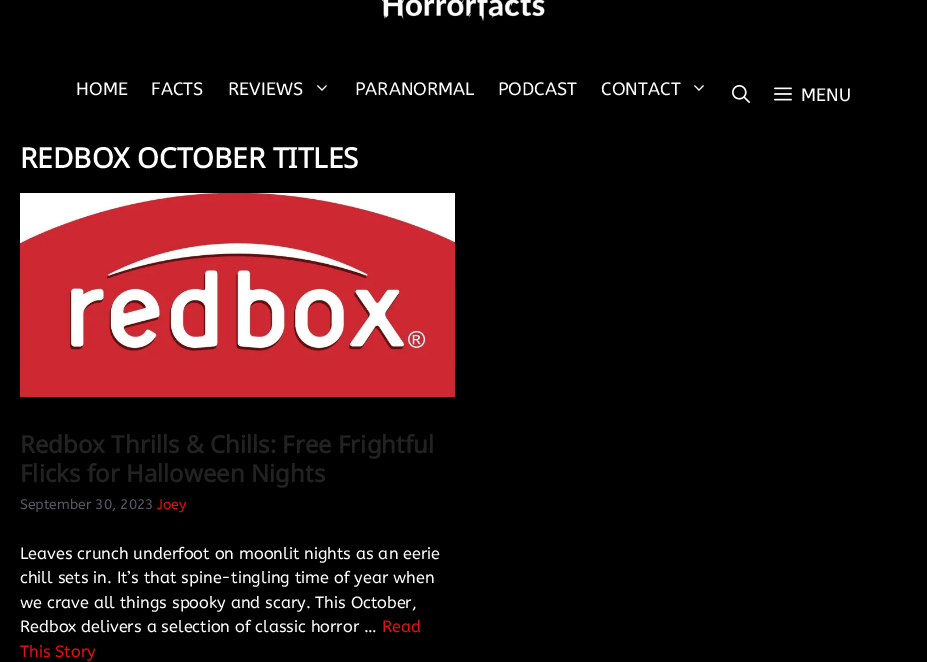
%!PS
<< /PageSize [927 662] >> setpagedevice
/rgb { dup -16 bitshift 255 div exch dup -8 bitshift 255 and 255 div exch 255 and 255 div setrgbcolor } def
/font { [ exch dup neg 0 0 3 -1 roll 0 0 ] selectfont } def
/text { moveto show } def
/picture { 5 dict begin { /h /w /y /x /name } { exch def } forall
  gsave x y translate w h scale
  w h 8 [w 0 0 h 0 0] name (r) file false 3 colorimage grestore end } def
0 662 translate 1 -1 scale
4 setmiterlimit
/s1 { /ABeeZee-Regular 18 font 16#FFFFFF rgb } def
/s2 { /NotoSansDeseret-Bold 28 font 16#FFFFFF rgb } def
/s3 { /NotoSansDeseret-Bold 24 font 16#222222 rgb } def
/s4 { /ABeeZee-Regular 13.9 font 16#575760 rgb } def
/s5 { /ABeeZee-Regular 13.9 font 16#E60F0F rgb } def
/s6 { /ABeeZee-Regular 16.3 font 16#FFFFFF rgb } def
/s7 { /ABeeZee-Regular 16.3 font 16#E60F0F rgb } def
16#000000 rgb
0 0 927 662 rectfill
(pic1.raw) 381 0 164 21 picture
s1
(HOME) 76 95 text
(FACTS) 151 95 text
(REVIEWS) 228 95 text
(pic2.raw) 317 85 10 6 picture
(PARANORMAL) 355 95 text
(PODCAST) 498 95 text
(CONTACT) 601 95 text
(pic2.raw) 694 85 10 6 picture
(pic3.raw) 732 85 18 18 picture
(pic4.raw) 774 87 18 14 picture
(MENU) 801 101 text
s2
(REDBOX OCTOBER TITLES) 20 168 text
(pic5.raw) 20 193 435 204 picture
s3
(Redbox Thrills & Chills: Free Frightful) 20 453 text
(Flicks for Halloween Nights) 20 482 text
s4
(September 30, 2023) 20 509 text
s5
(Joey) 157 509 text
s6
(Leaves crunch underfoot on moonlit nights as an eerie) 20 559 text
(chill sets in. It’s that spine-tingling time of year when) 20 583 text
(we crave all things spooky and scary. This October,) 20 608 text
(Redbox delivers a selection of classic horror …) 20 632 text
s7
(Read) 382 632 text
(This Story) 20 657 text
showpage
